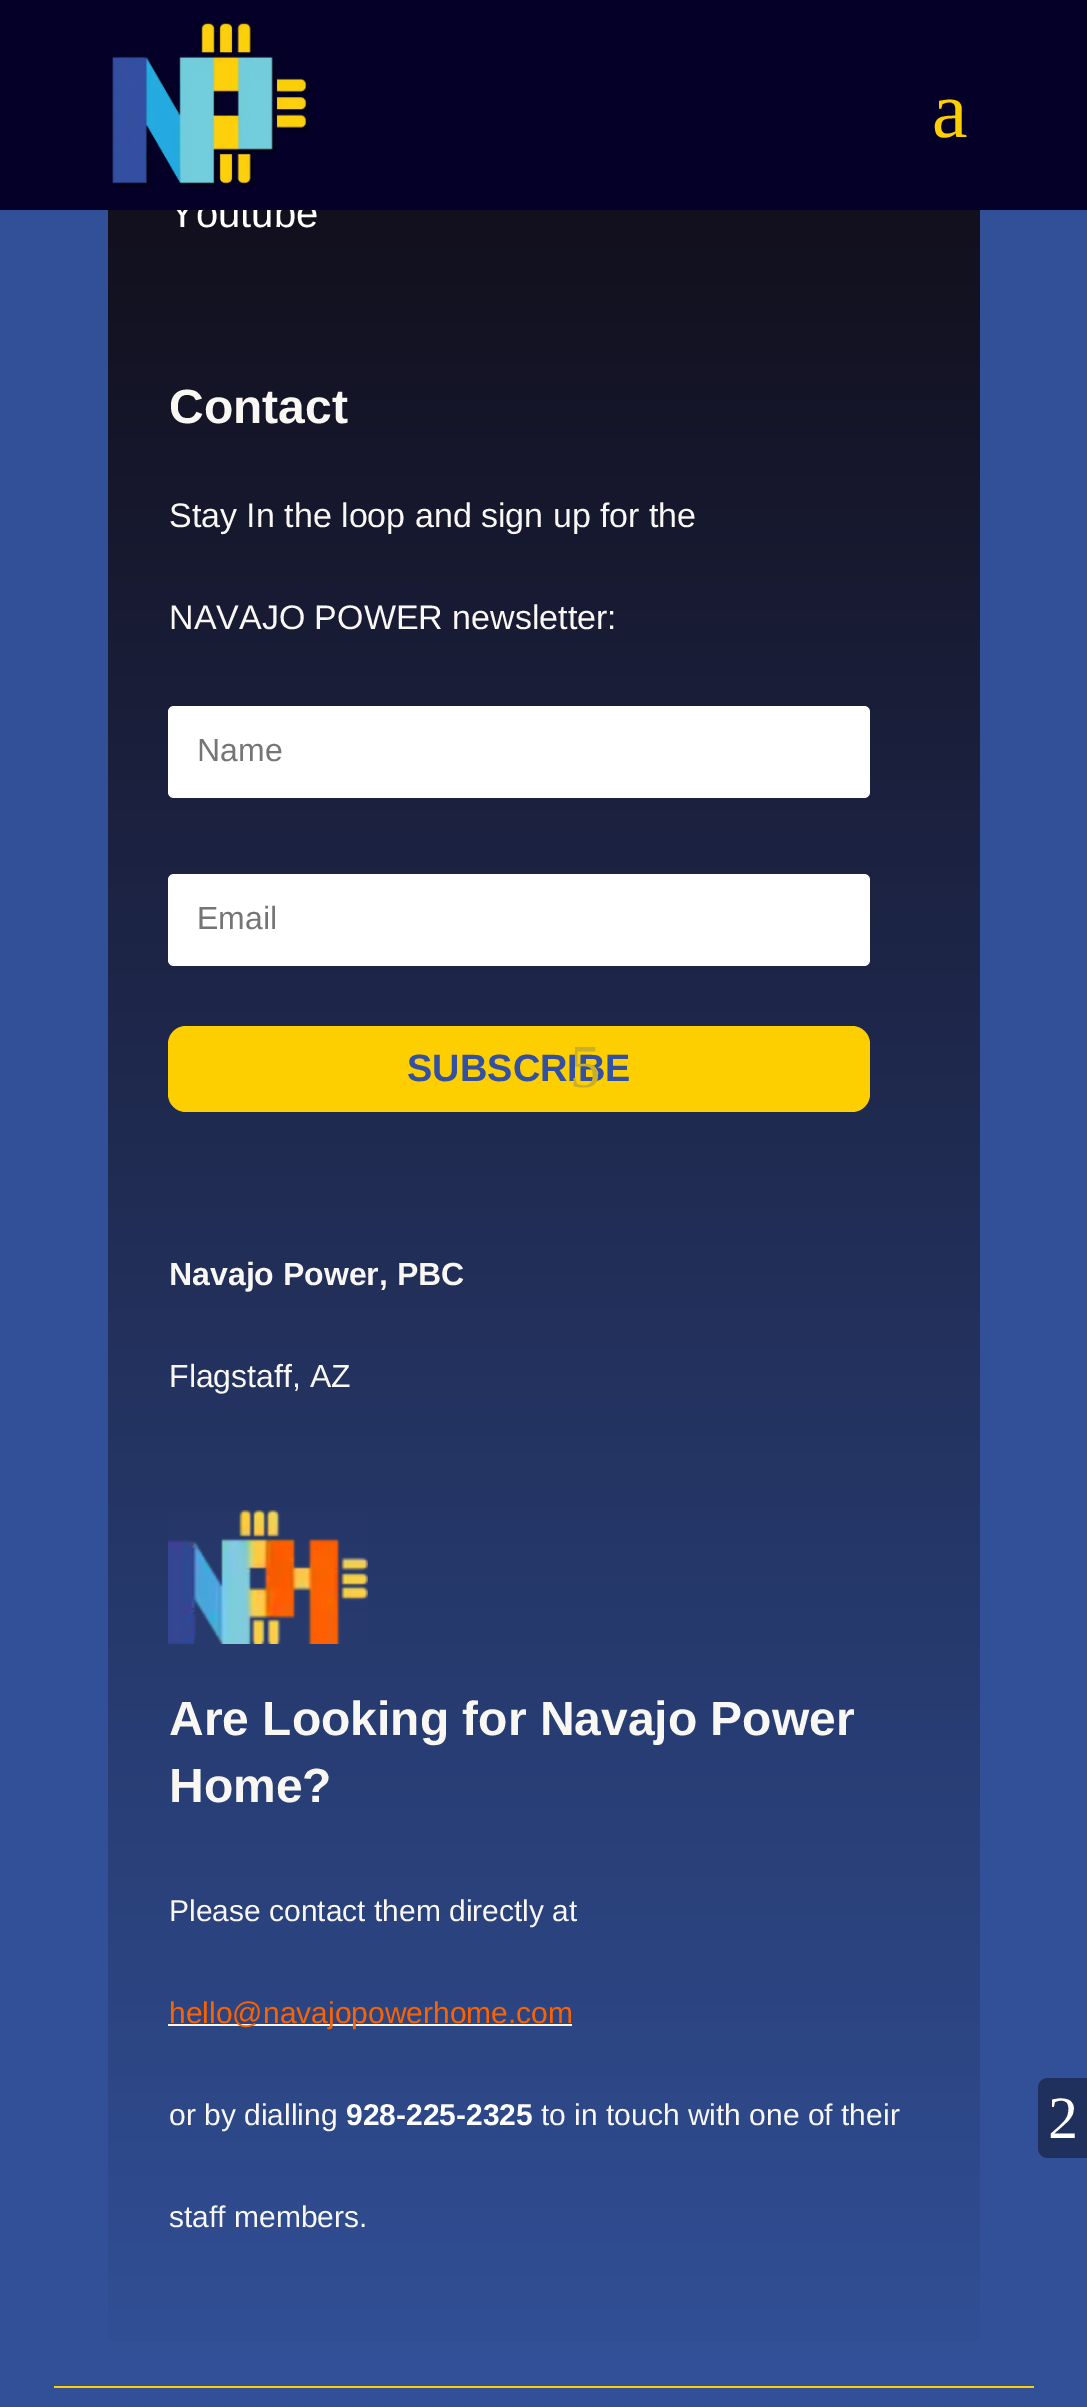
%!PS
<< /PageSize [1087 2407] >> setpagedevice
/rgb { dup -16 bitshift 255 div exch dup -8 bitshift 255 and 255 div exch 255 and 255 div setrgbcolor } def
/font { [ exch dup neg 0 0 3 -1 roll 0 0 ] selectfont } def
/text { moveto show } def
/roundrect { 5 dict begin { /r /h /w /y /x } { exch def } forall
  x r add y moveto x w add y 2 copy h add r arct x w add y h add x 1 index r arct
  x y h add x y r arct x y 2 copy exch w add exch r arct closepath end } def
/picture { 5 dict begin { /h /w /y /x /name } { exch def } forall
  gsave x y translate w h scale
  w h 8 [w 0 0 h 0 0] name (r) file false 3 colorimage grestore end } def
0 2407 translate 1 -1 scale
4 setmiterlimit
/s1 { /LiberationSans-Regular 40 font 16#FFFFFF rgb } def
/s2 { /LiberationSerif-Regular 80 font 16#FDCF01 rgb } def
/s3 { /LiberationSans-Bold 48 font 16#F9F7F4 rgb } def
/s4 { /LiberationSans-Regular 34 font 16#F9F7F4 rgb } def
/s5 { /LiberationSans-Regular 32 font 16#757575 rgb } def
/s6 { /LiberationSans-Bold 38 font 16#3450A1 rgb } def
/s7 { /LiberationSerif-Regular 61 font 16#CAAF29 rgb } def
/s8 { /LiberationSans-Bold 32 font 16#F9F7F4 rgb } def
/s9 { /LiberationSans-Regular 32 font 16#F9F7F4 rgb } def
/s10 { /LiberationSans-Regular 30 font 16#F9F7F4 rgb } def
/s11 { /LiberationSans-Regular 30 font 16#FA6301 rgb } def
/s12 { /LiberationSans-Bold 30 font 16#FFFFFF rgb } def
/s13 { /LiberationSerif-Regular 60 font 16#FFFFFF rgb } def
16#325098 rgb
0 0 1087 2407 rectfill
gsave 108 210 moveto 980 210 lineto 980 2342 lineto 108 2342 lineto closepath clip newpath
<< /ShadingType 2 /ColorSpace /DeviceRGB /Coords [544 -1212 544 2386] /Extend [true true] /Function << /FunctionType 3 /Domain [0 1] /Functions [<< /FunctionType 2 /Domain [0 1] /C0 [0.039 0 0] /C1 [0.039 0 0] /N 1 >> << /FunctionType 2 /Domain [0 1] /C0 [0.039 0 0] /C1 [0.196 0.314 0.596] /N 1 >>] /Bounds [0.25] /Encode [0 1 0 1] >> >> shfill grestore
s1
(Youtube) 169 227 text
16#050028 rgb
0 0 1087 210 rectfill
(pic1.raw) 112 23 198 164 picture
s2
(a) 932 137 text
s3
(Contact) 169 423 text
s4
(Stay In the loop and sign up for the) 169 527 text
(NAVAJO POWER newsletter:) 169 629 text
16#FFFFFF rgb
168 706 702 92 6 roundrect fill
s5
(Name) 197 761 text
16#FFFFFF rgb
168 874 702 92 6 roundrect fill
s5
(Email) 197 929 text
16#FDCF01 rgb
168 1026 702 86 18 roundrect fill
s6
(SUBSCRIBE) 407 1081 text
s7
(5) 570 1087 text
s8
(Navajo Power, PBC) 169 1285 text
s9
(Flagstaff, AZ) 169 1387 text
(pic2.raw) 168 1510 200 134 picture
s3
(Are Looking for Navajo Power) 169 1735 text
(Home?) 169 1802 text
s10
(Please contact them directly at) 169 1921 text
168 2024 404 2 rectfill
s11
(hello@navajopowerhome.com) 169 2023 text
s10
(or by dialling) 169 2125 text
s12
(928-225-2325) 346 2125 text
s10
(to in touch with one of their) 541 2125 text
(staff members.) 169 2227 text
16#FDCF01 rgb
54 2386 980 2 rectfill
16#1E305B rgb
1048 2078 moveto 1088 2078 lineto 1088 2158 lineto 1048 2158 lineto 1042.5 2158 1038 2153.5 1038 2148 curveto 1038 2088 lineto 1038 2082.5 1042.5 2078 1048 2078 curveto closepath fill
s13
(2) 1048 2138 text
showpage
